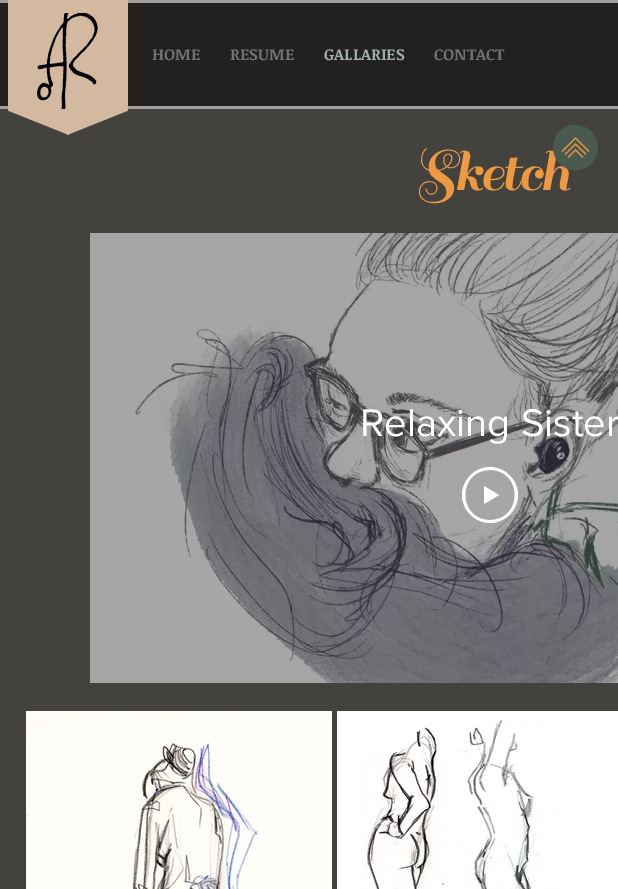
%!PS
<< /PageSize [618 889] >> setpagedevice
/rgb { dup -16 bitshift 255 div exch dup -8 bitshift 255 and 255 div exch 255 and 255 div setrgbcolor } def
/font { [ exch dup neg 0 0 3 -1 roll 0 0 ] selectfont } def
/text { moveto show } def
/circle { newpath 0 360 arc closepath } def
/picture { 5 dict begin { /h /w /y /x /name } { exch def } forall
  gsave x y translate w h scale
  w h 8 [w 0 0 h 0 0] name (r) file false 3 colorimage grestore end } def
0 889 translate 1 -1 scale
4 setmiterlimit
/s1 { /NoticiaText-Bold 16 font 16#72716F rgb } def
/s2 { /NoticiaText-Bold 16 font 16#A0AFA6 rgb } def
/s3 { /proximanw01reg-Regular 40 font 16#FFFFFF rgb } def
16#43423F rgb
0 0 618 889 rectfill
16#222120 rgb
0 3 618 103 rectfill
16#A1A09E rgb
0 0 618 3 rectfill
0 106 618 3 rectfill
gsave
8 0 120 136 rectclip
16#D4B9A1 rgb
67 135 moveto 67 -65 lineto 567 -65 lineto closepath fill
69 -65 moveto 69 135 lineto -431 -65 lineto closepath fill
grestore
(pic1.raw) 37 13 61 96 picture
s1
(HOME) 152 60 text
(RESUME) 230 60 text
s2
(GALLARIES) 324 60 text
s1
(CONTACT) 434 60 text
/Sail-Regular 61 font
16#ED9942 rgb
414 190 moveto -3 0 (Sketch) ashow
16#4B5A51 rgb
575.5 147.5 22.5 circle fill
(pic2.raw) 561 137 29 21 picture
(pic3.raw) 90 233 528 450 picture
s3
(Relaxing Sister) 360 436 text
490 520 moveto 523 520 523 470 490 470 curveto 457 470 457 520 490 520 curveto closepath 490 523 moveto 475 523 462 510 462 495 curveto 462 480 475 467 490 467 curveto 505 467 518 480 518 495 curveto 518 510 505 523 490 523 curveto closepath eofill
499 495 moveto 484 504 lineto 484 486 lineto closepath eofill
(pic4.raw) 26 711 306 178 picture
(pic5.raw) 337 711 281 178 picture
showpage
